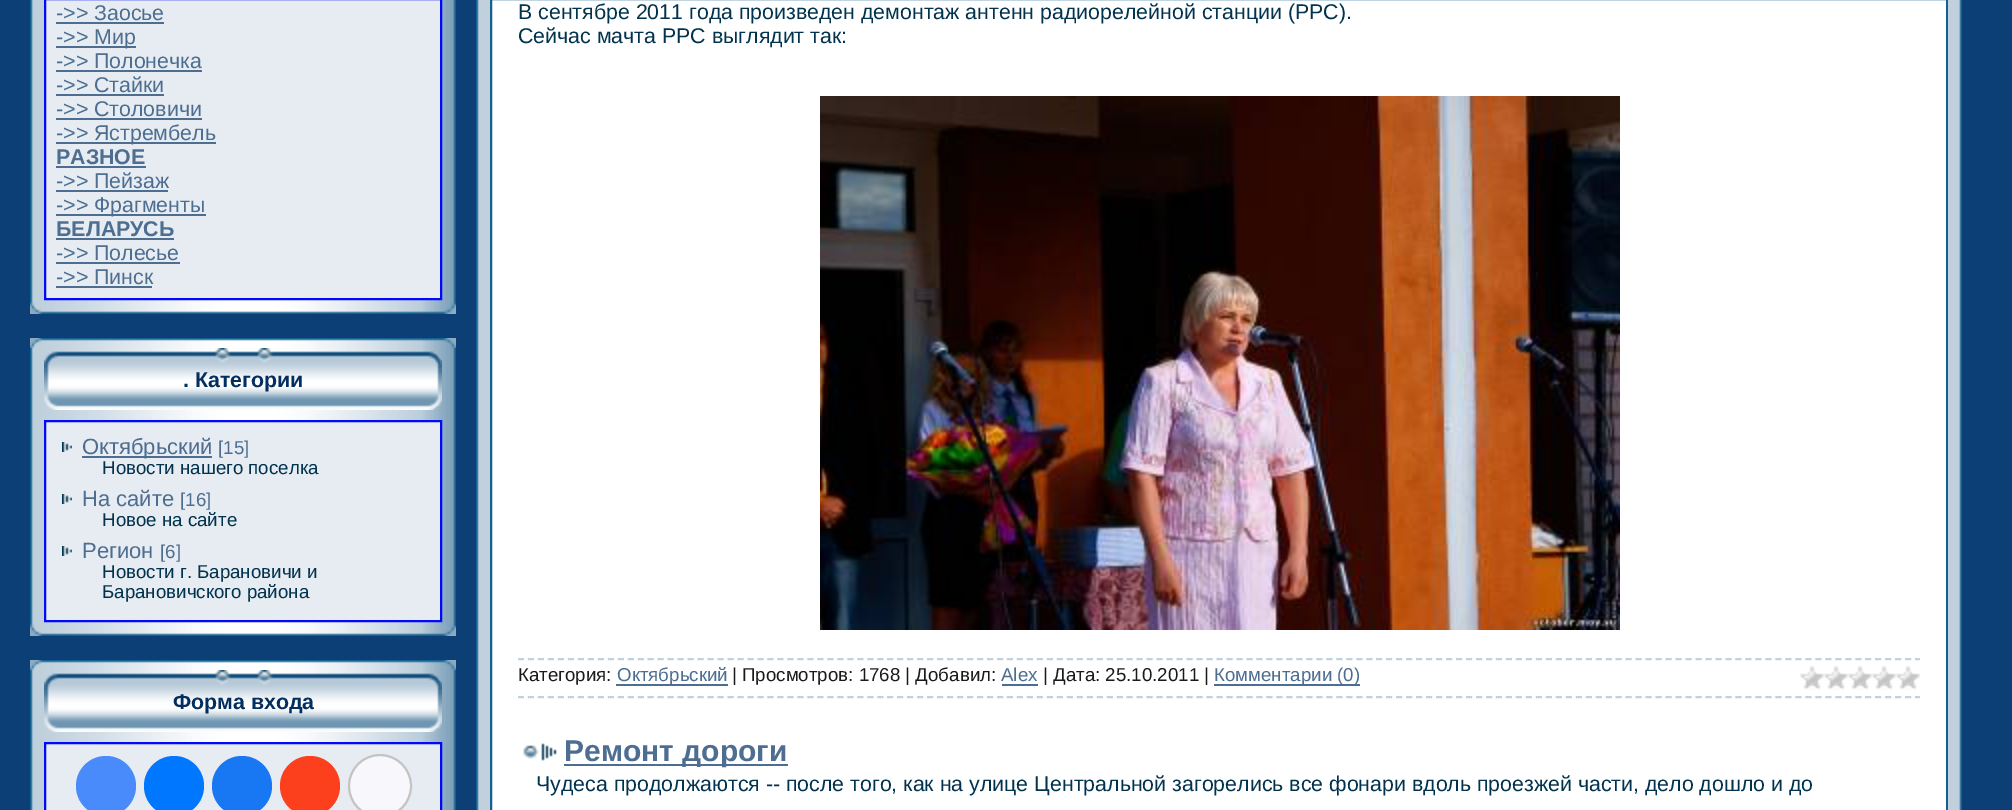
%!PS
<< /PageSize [2012 810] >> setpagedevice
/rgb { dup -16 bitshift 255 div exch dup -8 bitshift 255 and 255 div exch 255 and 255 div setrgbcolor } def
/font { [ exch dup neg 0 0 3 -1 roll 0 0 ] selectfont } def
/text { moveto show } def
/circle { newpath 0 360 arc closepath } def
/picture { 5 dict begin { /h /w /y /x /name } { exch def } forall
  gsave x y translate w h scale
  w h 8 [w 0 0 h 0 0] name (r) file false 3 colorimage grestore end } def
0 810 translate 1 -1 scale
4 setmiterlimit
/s1 { /LiberationSans-Regular 21.33 font 16#4D6D91 rgb } def
/s2 { /LiberationSans-Bold 21.33 font 16#4D6D91 rgb } def
/s3 { /LiberationSans-Bold 21.33 font 16#032F60 rgb } def
/s4 { /LiberationSans-Regular 22 font 16#4D6D91 rgb } def
/s5 { /LiberationSans-Regular 18.7 font 16#4D6D91 rgb } def
/s6 { /LiberationSans-Regular 18.7 font 16#01324E rgb } def
/s7 { /LiberationSans-Regular 21.33 font 16#01324E rgb } def
/s8 { /LiberationSans-Regular 18.7 font 16#1A1A1A rgb } def
/s9 { /LiberationSans-Bold 30 font 16#4D6D91 rgb } def
16#0D3F77 rgb
0 0 2012 810 rectfill
(pic1.raw) 30 0 426 301 picture
16#E6ECF1 rgb
45 -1 moveto 441 -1 lineto 441 299 lineto 45 299 lineto closepath gsave fill grestore
16#0208FA rgb
2 setlinewidth
stroke
s1
(->> Заосье) 56 20 text
56 22 108 2 rectfill
56 46 80 2 rectfill
(->> Мир) 56 44 text
(->> Полонечка) 56 68 text
56 70 146 2 rectfill
(->> Стайки) 56 92 text
56 94 108 2 rectfill
(->> Столовичи) 56 116 text
56 118 146 2 rectfill
56 142 160 2 rectfill
(->> Ястрембель) 56 140 text
s2
(РАЗНОЕ) 56 164 text
56 166 90 2 rectfill
s1
(->> Пейзаж) 56 188 text
56 190 112 2 rectfill
56 214 150 2 rectfill
(->> Фрагменты) 56 212 text
s2
(БЕЛАРУСЬ) 56 236 text
56 238 118 2 rectfill
s1
(->> Полесье) 56 260 text
56 262 124 2 rectfill
(->> Пинск) 56 284 text
56 286 96 2 rectfill
(pic2.raw) 30 301 426 13 picture
(pic3.raw) 30 348 426 275 picture
(pic4.raw) 30 338 426 10 picture
(pic5.raw) 44 348 398 62 picture
s3
(. Категории) 183 387 text
16#E6ECF1 rgb
45 421 moveto 441 421 lineto 441 621 lineto 45 621 lineto closepath gsave fill grestore
16#0208FA rgb
stroke
(pic6.raw) 62 442 10 10 picture
16#4D6D91 rgb
82 456 130 2 rectfill
s4
(Октябрьский) 82 454 text
s5
([15]) 218 454 text
s6
(Новости нашего поселка) 102 474 text
(pic6.raw) 62 494 10 10 picture
s4
(На сайте) 82 506 text
s5
([16]) 180 506 text
s6
(Новое на сайте) 102 526 text
(pic6.raw) 62 546 10 10 picture
s4
(Регион) 82 558 text
s5
([6]) 160 558 text
s6
(Новости г. Барановичи и) 102 578 text
(Барановичского района) 102 598 text
(pic2.raw) 30 623 426 13 picture
(pic7.raw) 30 670 426 140 picture
(pic4.raw) 30 660 426 10 picture
(pic5.raw) 44 670 398 62 picture
s3
(Форма входа) 173 709 text
16#E6ECF1 rgb
45 743 moveto 441 743 lineto 441 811 lineto 45 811 lineto closepath gsave fill grestore
16#0208FA rgb
stroke
16#498BFA rgb
106 786 30 circle fill
16#0077FF rgb
174 786 30 circle fill
16#1877F2 rgb
242 786 30 circle fill
16#FC3F1D rgb
310 786 30 circle fill
16#F8F8FC rgb
380 786 31 circle gsave fill grestore
16#C4C4C4 rgb
stroke
(pic8.raw) 476 0 14 810 picture
16#FFFFFF rgb
491 -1 moveto 1947 -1 lineto 1947 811 lineto 491 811 lineto closepath gsave fill grestore
16#146090 rgb
stroke
s7
(В сентябре 2011 года произведен демонтаж антенн радиорелейной станции \(РРС\).) 518 19 text
(Сейчас мачта РРС выглядит так:) 518 43 text
(pic9.raw) 820 96 800 534 picture
16#C1D2DE rgb
[6 3.98] 0 setdash
518 659 moveto 1920 659 lineto stroke
518 697 moveto 1920 697 lineto stroke
s8
(Категория:) 518 681 text
16#4D6D91 rgb
616 684 112 2 rectfill
(Октябрьский) 617 681 text
s8
(| Просмотров: 1768 | Добавил:) 732 681 text
s5
(Alex) 1001 681 text
1002 684 36 2 rectfill
s8
(| Дата: 25.10.2011 |) 1043 681 text
16#4D6D91 rgb
1214 684 146 2 rectfill
(Комментарии \(0\)) 1214 681 text
(pic10.raw) 1800 666 120 24 picture
(pic11.raw) 523 743 34 18 picture
564 764 224 2 rectfill
s9
(Ремонт дороги) 564 761 text
s7
(Чудеса продолжаются -- после того, как на улице Центральной загорелись все фонари вдоль проезжей части, дело дошло и до) 536 791 text
(pic12.raw) 1948 0 14 810 picture
showpage
